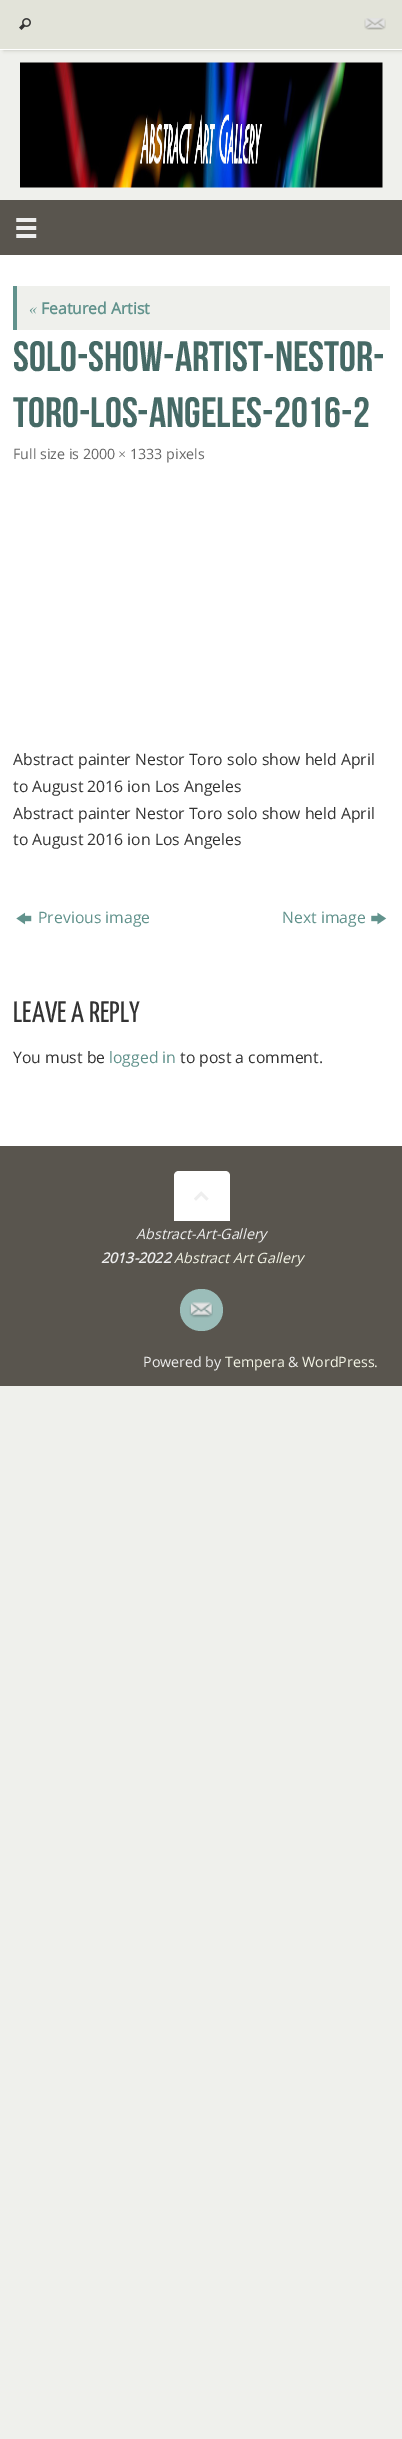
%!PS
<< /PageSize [402 2439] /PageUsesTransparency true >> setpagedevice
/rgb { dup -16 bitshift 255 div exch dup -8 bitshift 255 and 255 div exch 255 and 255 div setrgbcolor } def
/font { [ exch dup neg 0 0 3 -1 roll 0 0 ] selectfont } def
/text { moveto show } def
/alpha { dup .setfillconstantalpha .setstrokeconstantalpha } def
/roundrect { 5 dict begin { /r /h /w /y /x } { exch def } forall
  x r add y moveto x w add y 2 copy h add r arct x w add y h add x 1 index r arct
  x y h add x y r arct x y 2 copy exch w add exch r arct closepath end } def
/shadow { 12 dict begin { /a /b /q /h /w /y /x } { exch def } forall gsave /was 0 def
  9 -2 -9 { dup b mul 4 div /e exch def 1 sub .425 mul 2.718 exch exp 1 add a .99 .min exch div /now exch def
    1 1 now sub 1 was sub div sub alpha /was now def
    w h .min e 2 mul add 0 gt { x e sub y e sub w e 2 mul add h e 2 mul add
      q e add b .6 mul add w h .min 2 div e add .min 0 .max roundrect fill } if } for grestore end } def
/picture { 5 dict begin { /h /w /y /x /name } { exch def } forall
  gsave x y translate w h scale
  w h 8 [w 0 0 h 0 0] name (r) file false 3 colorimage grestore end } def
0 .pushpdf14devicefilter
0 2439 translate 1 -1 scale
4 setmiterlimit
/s1 { /LiberationSerif-Italic 15.75 font 16#61928C rgb } def
/s2 { /OpenSans-Bold 15.75 font 16#61928C rgb } def
/s3 { /BebasNeue-Regular 42.5 font 16#466A66 rgb } def
/s4 { /OpenSans-Regular 14.25 font 16#666666 rgb } def
/s5 { /LiberationSerif-Regular 14.25 font 16#666666 rgb } def
/s6 { /OpenSans-Regular 15.75 font 16#333333 rgb } def
/s7 { /OpenSans-Regular 15.75 font 16#61928C rgb } def
/s8 { /YanoneKaffeesatz-Regular 29.5 font 16#333333 rgb } def
/s9 { /OpenSans-Italic 14.25 font 16#EEEEEE rgb } def
/s10 { /OpenSans-BoldItalic 14.25 font 16#EEEEEE rgb } def
/s11 { /OpenSans-Italic 14.25 font 16#F3F4E5 rgb } def
/s12 { /OpenSans-Regular 14.25 font 16#EEEEEE rgb } def
/s13 { /OpenSans-Regular 14.25 font 16#F3F4E5 rgb } def
16#EFF0EC rgb
0 0 402 2439 rectfill
16#BABBB1 rgb
4 0 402 50 0 2 1 shadow
16#E2E3D9 rgb
0 0 402 49 rectfill
16#FFFFFF rgb
0 49 402 1 rectfill
(pic1.raw) 19 18 12 12 picture
(pic2.raw) 364 18 22 12 picture
(pic3.raw) 20 62 363 126 picture
16#59554E rgb
0 200 402 55 rectfill
(pic4.raw) 16 218 21 20 picture
16#FFFFFF rgb
0 255 402 891 rectfill
16#EFF0EC rgb
17 286 373 44 rectfill
16#61928C rgb
13 286 4 44 rectfill
s1
(«) 29 314 text
s2
(Featured Artist) 41 314 text
s3
(SOLO-SHOW-ARTIST-NESTOR-) 13 371 text
gsave
13 330 377 524 rectclip
(TORO-LOS-ANGELES-2016-2) 13 427 text
grestore
s4
(Full size is 2000) 13 459 text
s5
(×) 118 459 text
s4
(1333 pixels) 130 459 text
s6
(Abstract painter Nestor Toro solo show held April) 13 765 text
(to August 2016 ion Los Angeles) 13 792 text
(Abstract painter Nestor Toro solo show held April) 13 819 text
(to August 2016 ion Los Angeles) 13 845 text
(pic5.raw) 16 912 16 13 picture
s7
(Previous image) 38 923 text
(Next image) 282 923 text
(pic6.raw) 371 912 16 13 picture
s8
(LEAVE A REPLY) 13 1022 text
s6
(You must be) 13 1063 text
s7
(logged in) 109 1063 text
s6
(to post a comment.) 180 1063 text
16#59554E rgb
0 1146 402 240 rectfill
16#FFFFFF rgb
179 1171 moveto 225 1171 lineto 228 1171 230 1173 230 1176 curveto 230 1221 lineto 174 1221 lineto 174 1176 lineto 174 1173 176 1171 179 1171 curveto closepath fill
(pic7.raw) 194 1191 15 10 picture
s9
(Abstract-Art-Gallery) 136 1239 text
s10
(2013-2022) 101 1263 text
s11
(Abstract Art Gallery) 174 1263 text
16#9BBDB9 rgb
180 1289 43 42 21 roundrect fill
(pic8.raw) 189 1302 24 16 picture
s12
(Powered by) 143 1367 text
s13
(Tempera) 225 1367 text
s12
(&) 288 1367 text
s13
(WordPress.) 302 1367 text
.poppdf14devicefilter showpage
